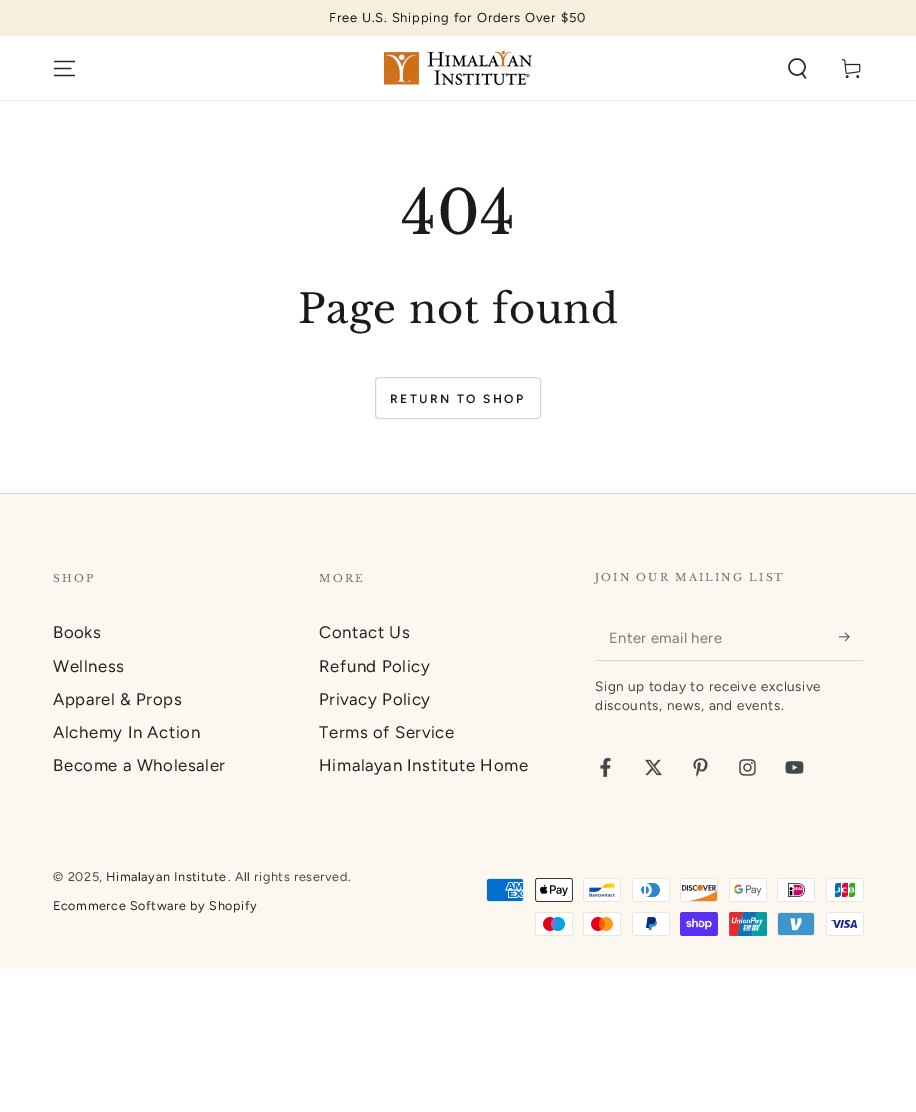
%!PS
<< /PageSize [916 1112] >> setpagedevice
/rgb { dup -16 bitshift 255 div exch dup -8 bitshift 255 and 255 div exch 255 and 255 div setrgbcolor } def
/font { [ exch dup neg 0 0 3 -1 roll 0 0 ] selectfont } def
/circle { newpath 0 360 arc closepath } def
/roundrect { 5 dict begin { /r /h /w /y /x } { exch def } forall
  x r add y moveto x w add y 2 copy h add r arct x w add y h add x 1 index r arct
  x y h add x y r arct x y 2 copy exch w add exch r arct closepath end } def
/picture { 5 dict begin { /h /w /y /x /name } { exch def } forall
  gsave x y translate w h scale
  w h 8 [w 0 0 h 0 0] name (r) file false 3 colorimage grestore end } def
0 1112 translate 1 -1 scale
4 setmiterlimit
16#FFFFFF rgb
0 0 916 1112 rectfill
16#F7EEDD rgb
0 0 916 36 rectfill
/Figtree-Regular 13 font
16#1A1B18 rgb
329 22 moveto 0.8 0 (Free U.S. Shipping for Orders Over $50) ashow
16#F2F2F4 rgb
0 100 916 1 rectfill
16#282828 rgb
1.2 setlinewidth
54 75.5 moveto 75 75.5 lineto 54 68.5 moveto 71.5 68.5 lineto 54 61.5 moveto 75 61.5 lineto stroke
(pic1.raw) 384 51 148 34 picture
1.4 setlinewidth
797 67 8 circle stroke
1 setlinecap
802 73 moveto 805.5 78 lineto stroke
(pic2.raw) 841 59 20 20 picture
/LibreBaskerville-Regular 60 font
16#1A1B18 rgb
401 234 moveto 0.6 0 (404) ashow
/LibreBaskerville-Regular 40 font
298 323 moveto 0.6 0 (Page not found) ashow
16#D2D5D9 rgb
1 setlinewidth
0 setlinecap
375.5 377.5 165 41 3.5 roundrect stroke
/Figtree-SemiBold 12 font
16#1A1B18 rgb
390 403 moveto 2.4 0 (RETURN TO SHOP) ashow
16#FCF8F0 rgb
0 494 916 474 rectfill
16#D2D5D9 rgb
0 493 916 1 rectfill
/LibreBaskerville-Regular 10.5 font
16#6B7177 rgb
53 582 moveto 2.1 0 (SHOP) ashow
/Figtree-Regular 16.75 font
16#212326 rgb
53 638 moveto 0.6 0 (Books) ashow
53 672 moveto 0.6 0 (Wellness) ashow
53 705 moveto 0.6 0 (Apparel & Props) ashow
53 738 moveto 0.6 0 (Alchemy In Action) ashow
53 771 moveto 0.6 0 (Become a Wholesaler) ashow
/LibreBaskerville-Regular 10.5 font
16#6B7177 rgb
319 582 moveto 2.1 0 (MORE) ashow
/Figtree-Regular 16.75 font
16#212326 rgb
319 638 moveto 0.6 0 (Contact Us) ashow
319 672 moveto 0.6 0 (Refund Policy) ashow
319 705 moveto 0.6 0 (Privacy Policy) ashow
319 738 moveto 0.6 0 (Terms of Service) ashow
319 771 moveto 0.6 0 (Himalayan Institute Home) ashow
/LibreBaskerville-Regular 10.5 font
16#6B7177 rgb
595 581 moveto 2.1 0 (JOIN OUR MAILING LIST) ashow
16#D2D5D9 rgb
864 661 moveto 595 661 lineto 596 660 lineto 863 660 lineto closepath fill
/Figtree-Regular 14.75 font
16#7A7C7D rgb
609 643 moveto 0.4 0 (Enter email here) ashow
(pic3.raw) 839 632 11 10 picture
/Figtree-Regular 13.6 font
16#42474C rgb
595 691 moveto 0.55 0 (Sign up today to receive exclusive) ashow
595 710 moveto 0.55 0 (discounts, news, and events.) ashow
(pic4.raw) 600 758 11 19 picture
(pic5.raw) 645 759 17 17 picture
(pic6.raw) 693 758 15 19 picture
(pic7.raw) 739 759 17 17 picture
(pic8.raw) 785 761 19 13 picture
/Figtree-Regular 12.6 font
53 881 moveto 0.6 0 (© 2025,) ashow
16#212326 rgb
106 881 moveto 0.6 0 (Himalayan Institute) ashow
16#42474C rgb
228 881 moveto 0.6 0 (. All rights reserved.) ashow
16#212326 rgb
53 910 moveto 0.6 0 (Ecommerce Software by Shopify) ashow
(pic9.raw) 486 878 38 24 picture
(pic10.raw) 535 878 38 24 picture
(pic11.raw) 583 878 38 24 picture
(pic12.raw) 632 878 38 24 picture
(pic13.raw) 680 878 38 24 picture
(pic14.raw) 729 878 38 24 picture
(pic15.raw) 777 878 38 24 picture
(pic16.raw) 826 878 38 24 picture
(pic17.raw) 535 912 38 24 picture
(pic18.raw) 583 912 38 24 picture
(pic19.raw) 632 912 38 24 picture
(pic20.raw) 680 912 38 24 picture
(pic21.raw) 729 912 38 24 picture
(pic22.raw) 777 912 38 24 picture
(pic23.raw) 826 912 38 24 picture
showpage
